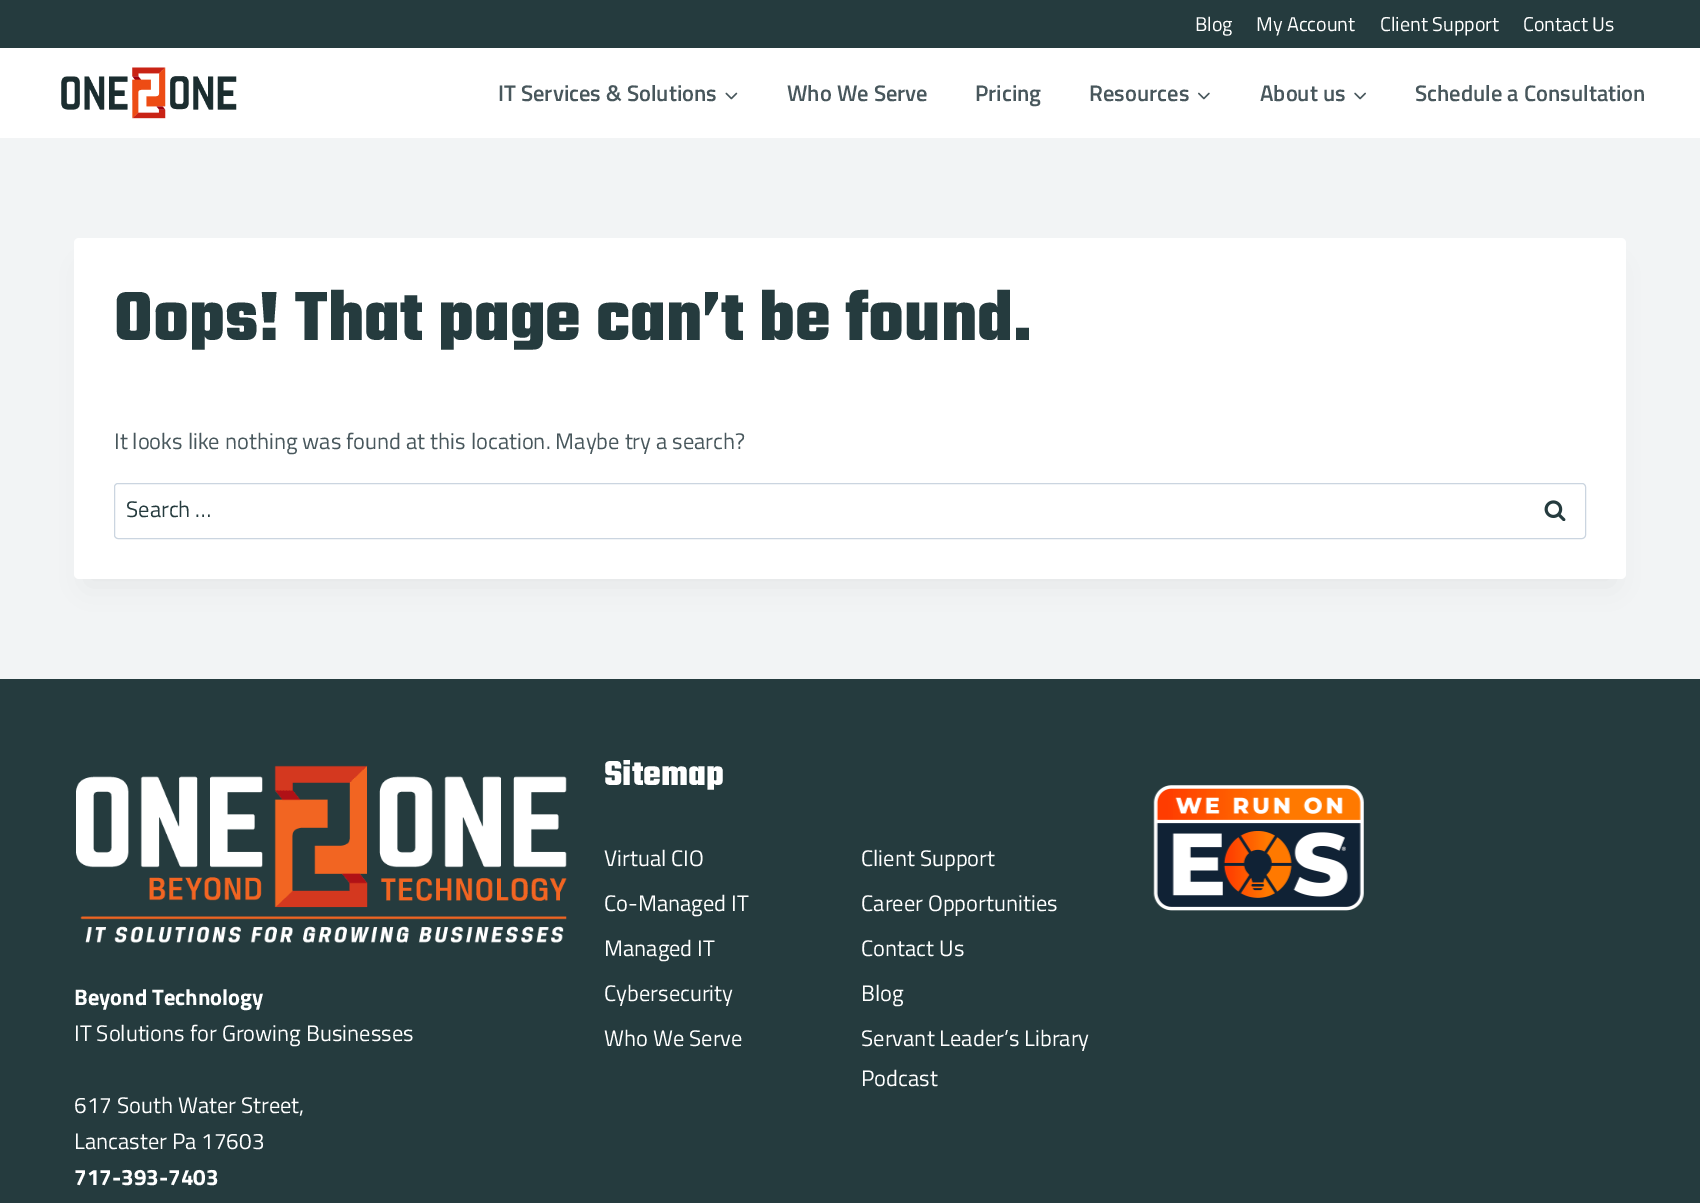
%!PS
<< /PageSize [1700 1203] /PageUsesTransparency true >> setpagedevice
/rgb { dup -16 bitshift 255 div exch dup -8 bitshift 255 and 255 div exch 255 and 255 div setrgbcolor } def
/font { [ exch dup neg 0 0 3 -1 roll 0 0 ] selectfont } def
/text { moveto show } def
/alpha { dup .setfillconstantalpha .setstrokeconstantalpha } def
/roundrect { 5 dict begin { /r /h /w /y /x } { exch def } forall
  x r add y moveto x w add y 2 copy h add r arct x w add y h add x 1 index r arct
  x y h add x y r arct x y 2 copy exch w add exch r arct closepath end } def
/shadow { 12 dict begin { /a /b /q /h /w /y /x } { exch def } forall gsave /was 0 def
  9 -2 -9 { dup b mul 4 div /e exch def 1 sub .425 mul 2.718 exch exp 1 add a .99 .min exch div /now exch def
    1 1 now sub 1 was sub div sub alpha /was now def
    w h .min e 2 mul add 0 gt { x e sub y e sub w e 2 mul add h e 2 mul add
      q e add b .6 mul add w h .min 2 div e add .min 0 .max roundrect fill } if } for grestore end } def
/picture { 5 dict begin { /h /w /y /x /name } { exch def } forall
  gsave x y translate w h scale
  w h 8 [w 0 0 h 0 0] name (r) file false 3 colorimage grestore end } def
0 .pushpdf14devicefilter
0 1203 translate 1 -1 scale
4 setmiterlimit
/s1 { /TitilliumWeb-Regular 20 font 16#FFFFFF rgb } def
/s2 { /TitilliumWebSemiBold-SemiBold 22.5 font 16#48575C rgb } def
/s3 { /Teko-Light 75 font 16#253B3E rgb } def
/s4 { /TitilliumWeb-Regular 22.5 font 16#48575C rgb } def
/s5 { /TitilliumWeb-Regular 22.5 font 16#253B3E rgb } def
/s6 { /Teko-Light 37.5 font 16#FFFFFF rgb } def
/s7 { /TitilliumWeb-Regular 22.5 font 16#FFFFFF rgb } def
/s8 { /TitilliumWeb-Bold 22.5 font 16#FFFFFF rgb } def
16#F2F4F5 rgb
0 0 1700 1203 rectfill
16#FFFFFF rgb
0 48 1700 90 rectfill
16#253B3E rgb
0 0 1700 48 rectfill
s1
(Blog) 1195 31 text
(My Account) 1256 31 text
(Client Support) 1380 31 text
(Contact Us) 1523 31 text
(pic1.raw) 61 67 176 52 picture
s2
(IT Services & Solutions) 498 101 text
(pic2.raw) 725 92 13 8 picture
(Who We Serve) 787 101 text
(Pricing) 975 101 text
(Resources) 1089 101 text
(pic3.raw) 1198 92 12 8 picture
(About us) 1260 101 text
(pic4.raw) 1354 92 12 8 picture
(Schedule a Consultation) 1415 101 text
16#000000 rgb
86 269 1528 316 0 15.5 0.05 shadow
16#FFFFFF rgb
74 238 1552 341 5 roundrect fill
s3
(Oops! That page can’t be found.) 114 340 text
s4
(It looks like nothing was found at this location. Maybe try a search?) 114 449 text
16#CBD5E0 rgb
114.5 483.5 1471 55 3.5 roundrect stroke
s5
(Search …) 126 517 text
(pic5.raw) 1544 500 22 21 picture
0 679 1700 524 rectfill
s6
(Sitemap) 604 785 text
s7
(Virtual CIO) 604 866 text
(Client Support) 861 866 text
(Co-Managed IT) 604 911 text
(Career Opportunities) 861 911 text
(Managed IT) 604 956 text
(Contact Us) 861 956 text
(Cybersecurity) 604 1001 text
(Blog) 861 1001 text
(Who We Serve) 604 1046 text
(Servant Leader’s Library) 861 1046 text
(Podcast) 861 1086 text
(pic6.raw) 1153 785 211 126 picture
(pic7.raw) 76 765 491 178 picture
s8
(Beyond Technology) 74 1005 text
s7
(IT Solutions for Growing Businesses) 74 1041 text
(617 South Water Street,) 74 1113 text
(Lancaster Pa 17603) 74 1149 text
s8
(717-393-7403) 74 1185 text
.poppdf14devicefilter showpage
